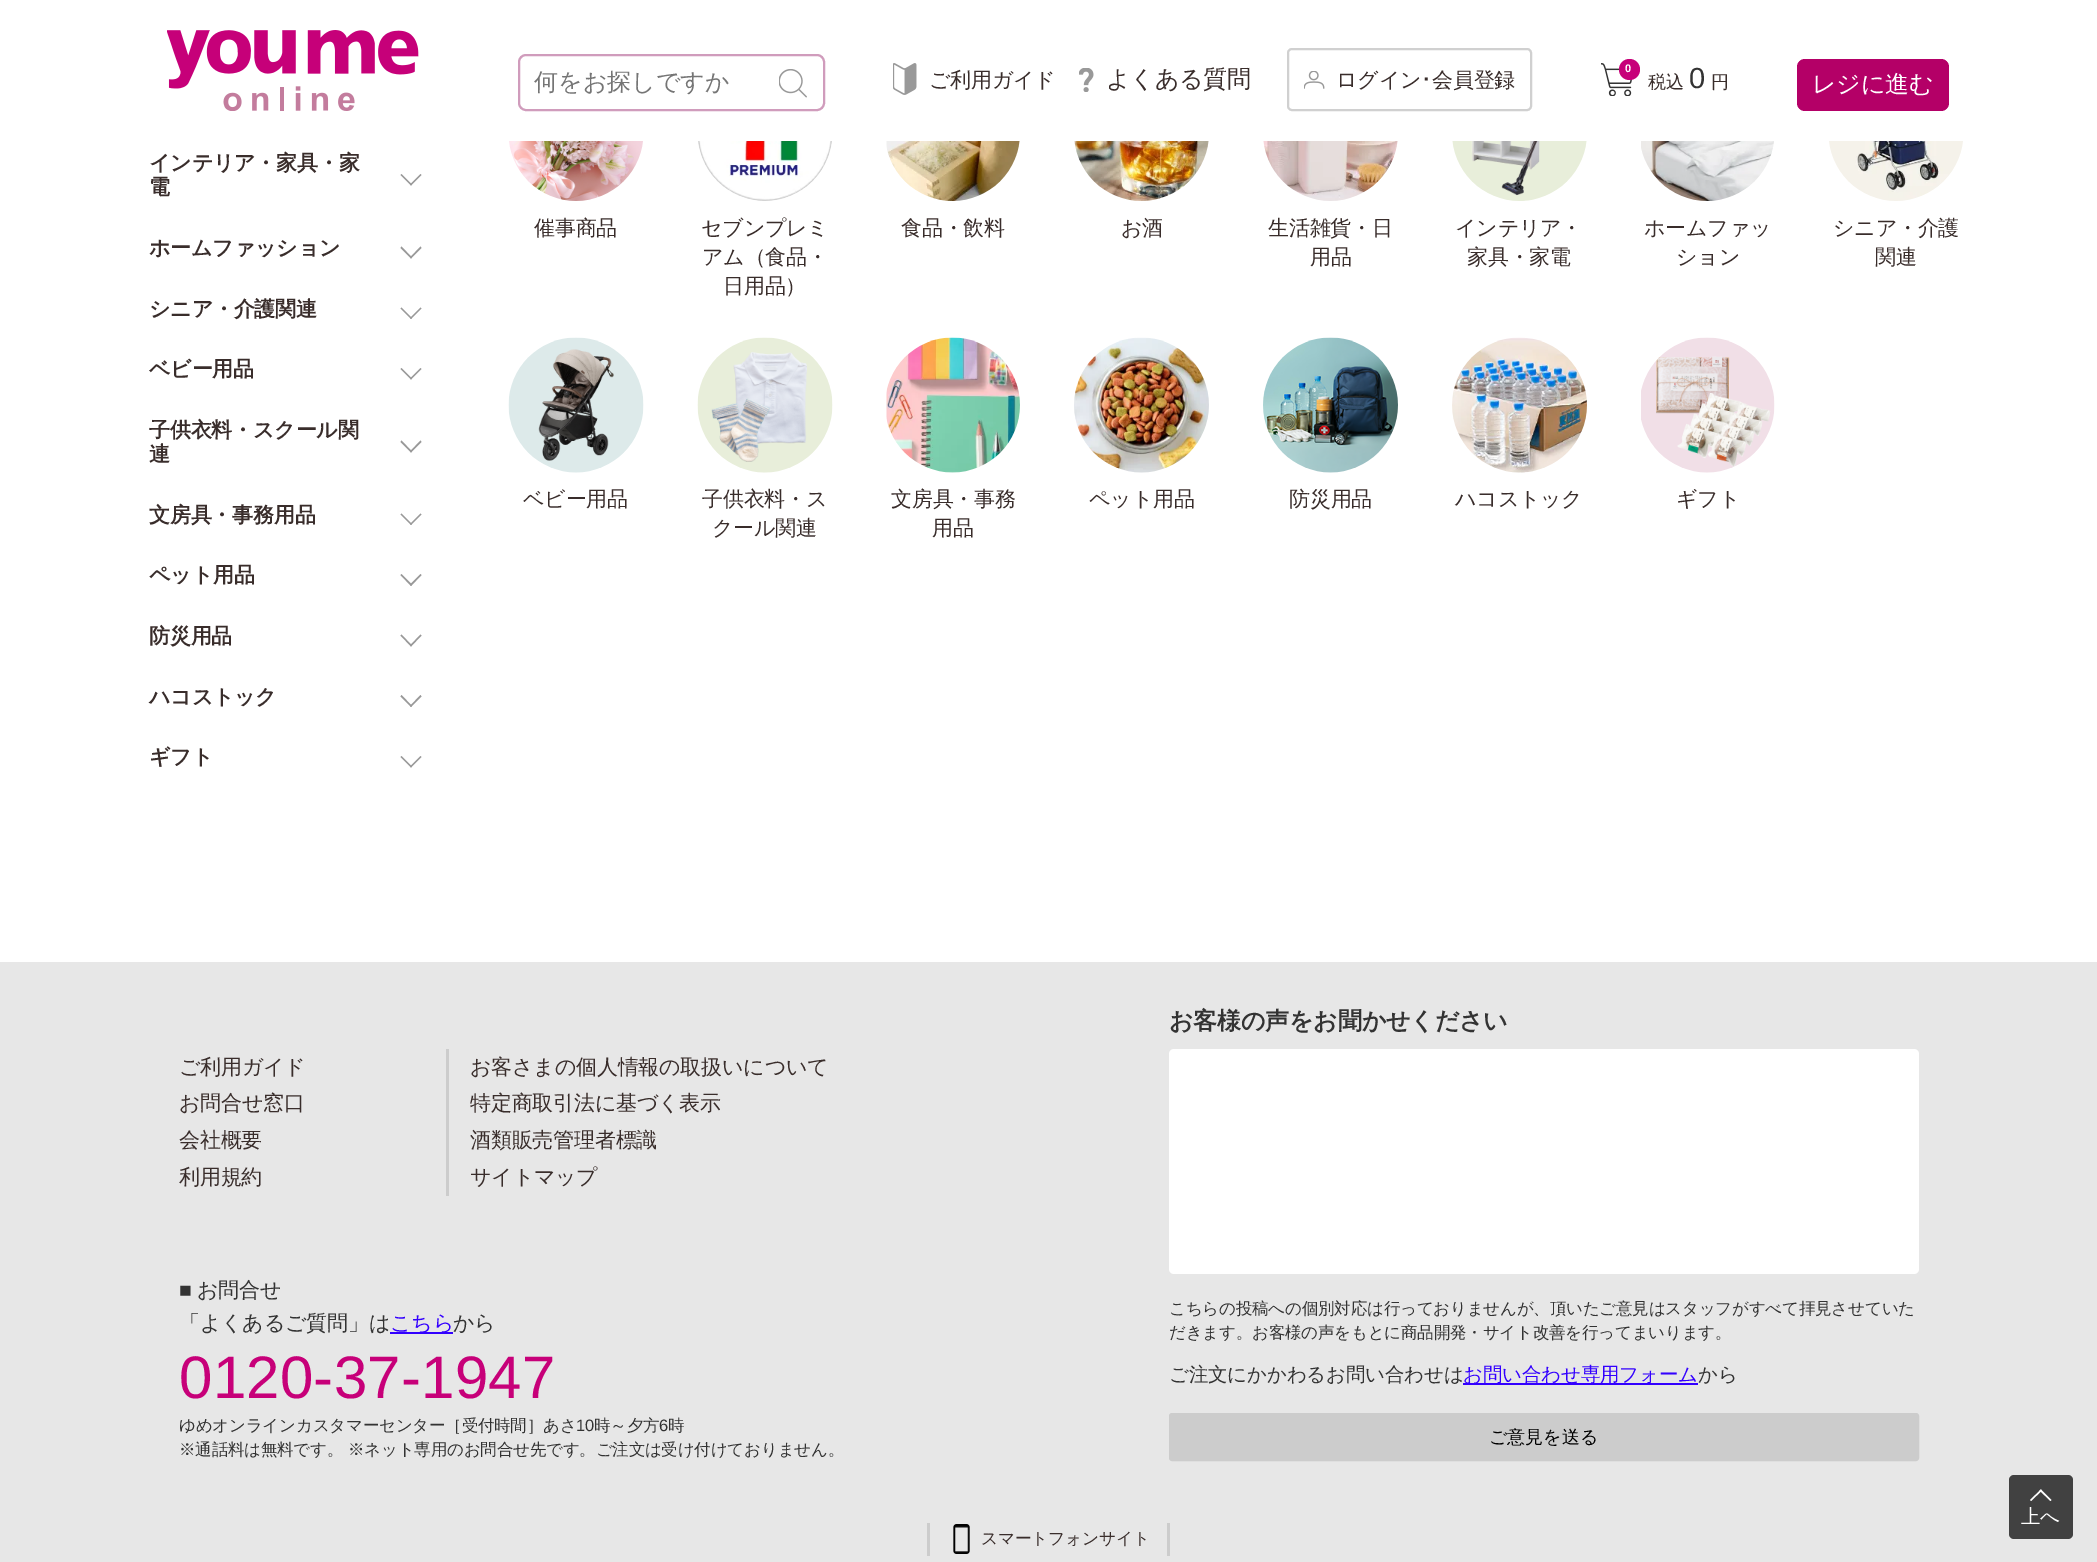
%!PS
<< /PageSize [2097 1562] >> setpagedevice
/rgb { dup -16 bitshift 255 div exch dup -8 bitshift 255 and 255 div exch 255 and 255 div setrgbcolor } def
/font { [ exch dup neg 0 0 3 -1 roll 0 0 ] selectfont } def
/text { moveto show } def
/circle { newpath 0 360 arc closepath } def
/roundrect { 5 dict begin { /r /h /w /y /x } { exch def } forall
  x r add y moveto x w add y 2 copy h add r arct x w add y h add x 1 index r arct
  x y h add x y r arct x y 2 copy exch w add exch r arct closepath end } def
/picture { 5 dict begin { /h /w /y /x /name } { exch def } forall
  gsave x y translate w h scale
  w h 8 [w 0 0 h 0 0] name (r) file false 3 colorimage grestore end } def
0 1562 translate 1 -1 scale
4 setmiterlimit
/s1 { /WenQuanYiZenHei-Medium 24 font 16#757575 rgb } def
/s2 { /LiberationSans-Bold 11 font 16#FFFFFF rgb } def
/s3 { /WenQuanYiZenHei-Medium 18 font 16#000000 rgb } def
16#FFFFFF rgb
0 0 2097 1562 rectfill
(pic1.raw) 167 30 252 81 picture
16#D09CBC rgb
2 setlinewidth
519 55 305 55 7 roundrect stroke
s1
(何をお探しですか) 534 90 text
(pic2.raw) 779 69 28 29 picture
(pic3.raw) 893 63 24 32 picture
/WenQuanYiZenHei-Medium 21 font
16#392D2B rgb
929 87 moveto -0.2 0 (ご利用ガイド) ashow
(pic4.raw) 1079 68 15 24 picture
/WenQuanYiZenHei-Medium 24 font
1106 87 moveto -0.2 0 (よくある質問) ashow
16#D0D0D0 rgb
1288 49 243 61 4 roundrect stroke
(pic5.raw) 1304 71 21 18 picture
/WenQuanYiZenHei-Medium 21 font
16#392D2B rgb
1336 87 moveto -0.2 0 (ログイン) ashow
/IPAPGothic-Regular 21 font
1421 87 moveto -0.2 0 (･) ashow
/WenQuanYiZenHei-Medium 21 font
1432 87 moveto -0.2 0 (会員登録) ashow
(pic6.raw) 1601 63 32 33 picture
16#C70079 rgb
1629.5 69.5 10.5 circle fill
s2
(0) 1625 72 text
/WenQuanYiZenHei-Medium 18 font
16#392D2B rgb
1648 88 moveto -0.2 0 (税込) ashow
/LiberationSans-Regular 29 font
16#333333 rgb
1689 88 moveto -0.2 0 (0) ashow
/WenQuanYiZenHei-Medium 18 font
16#392D2B rgb
1711 88 moveto -0.2 0 (円) ashow
16#B40067 rgb
1797 59 152 52 8 roundrect fill
/WenQuanYiZenHei-Medium 24 font
16#FFFFFF rgb
1812 92 moveto -0.2 0 (レジに進む) ashow
/WenQuanYiZenHei-Bold 21 font
16#392D2B rgb
149 170 moveto -0.2 0 (インテリア・家具・家) ashow
149 194 moveto -0.2 0 (電) ashow
16#999999 rgb
410 184.5 moveto 420.5 174 lineto 421.5 175 lineto 411 185.5 lineto closepath fill
400.5 175 moveto 401.5 174 lineto 412 184.5 lineto 411 185.5 lineto closepath fill
16#392D2B rgb
149 255 moveto -0.2 0 (ホームファッション) ashow
16#999999 rgb
410 257.5 moveto 420.5 246.5 lineto 421.5 248 lineto 411 258.5 lineto closepath fill
400.5 248 moveto 401.5 246.5 lineto 412 257.5 lineto 411 258.5 lineto closepath fill
16#392D2B rgb
149 316 moveto -0.2 0 (シニア・介護関連) ashow
16#999999 rgb
410 318 moveto 420.5 307.5 lineto 421.5 308.5 lineto 411 319 lineto closepath fill
400.5 308.5 moveto 401.5 307.5 lineto 412 318 lineto 411 319 lineto closepath fill
16#392D2B rgb
149 376 moveto -0.2 0 (ベビー用品) ashow
16#999999 rgb
410 378.5 moveto 420.5 368 lineto 421.5 369 lineto 411 379.5 lineto closepath fill
400.5 369 moveto 401.5 368 lineto 412 378.5 lineto 411 379.5 lineto closepath fill
16#392D2B rgb
149 437 moveto -0.2 0 (子供衣料・スクール関) ashow
149 461 moveto -0.2 0 (連) ashow
16#999999 rgb
410 451.5 moveto 420.5 440.5 lineto 421.5 442 lineto 411 452.5 lineto closepath fill
400.5 442 moveto 401.5 440.5 lineto 412 451.5 lineto 411 452.5 lineto closepath fill
16#392D2B rgb
149 522 moveto -0.2 0 (文房具・事務用品) ashow
16#999999 rgb
410 524 moveto 420.5 513.5 lineto 421.5 514.5 lineto 411 525 lineto closepath fill
400.5 514.5 moveto 401.5 513.5 lineto 412 524 lineto 411 525 lineto closepath fill
16#392D2B rgb
149 582 moveto -0.2 0 (ペット用品) ashow
16#999999 rgb
410 584.5 moveto 420.5 574 lineto 421.5 575 lineto 411 586 lineto closepath fill
400.5 575 moveto 401.5 574 lineto 412 584.5 lineto 411 586 lineto closepath fill
16#392D2B rgb
149 643 moveto -0.2 0 (防災用品) ashow
16#999999 rgb
410 645.5 moveto 420.5 634.5 lineto 421.5 635.5 lineto 411 646.5 lineto closepath fill
400.5 635.5 moveto 401.5 634.5 lineto 412 645.5 lineto 411 646.5 lineto closepath fill
16#392D2B rgb
149 704 moveto -0.2 0 (ハコストック) ashow
16#999999 rgb
410 706 moveto 420.5 695 lineto 421.5 696.5 lineto 411 707 lineto closepath fill
400.5 696.5 moveto 401.5 695 lineto 412 706 lineto 411 707 lineto closepath fill
16#392D2B rgb
149 764 moveto -0.2 0 (ギフト) ashow
16#999999 rgb
410 766.5 moveto 420.5 756 lineto 421.5 757 lineto 411 767.5 lineto closepath fill
400.5 757 moveto 401.5 756 lineto 412 766.5 lineto 411 767.5 lineto closepath fill
(pic7.raw) 509 141 134 60 picture
/WenQuanYiZenHei-Medium 21 font
16#392D2B rgb
534 235 moveto -0.2 0 (催事商品) ashow
(pic8.raw) 698 141 134 60 picture
701 235 moveto -0.2 0 (セブンプレミ) ashow
702 264 moveto -0.2 0 (アム（食品・) ashow
723 293 moveto -0.2 0 (日用品）) ashow
(pic9.raw) 886 141 134 60 picture
901 235 moveto -0.2 0 (食品・飲料) ashow
(pic10.raw) 1074 141 135 60 picture
1121 235 moveto -0.2 0 (お酒) ashow
(pic11.raw) 1263 141 135 60 picture
1268 235 moveto -0.2 0 (生活雑貨・日) ashow
1310 264 moveto -0.2 0 (用品) ashow
(pic12.raw) 1452 141 135 60 picture
1455 235 moveto -0.2 0 (インテリア・) ashow
1467 264 moveto -0.2 0 (家具・家電) ashow
(pic13.raw) 1641 141 133 60 picture
1644 235 moveto -0.2 0 (ホームファッ) ashow
1676 264 moveto -0.2 0 (ション) ashow
(pic14.raw) 1829 141 134 60 picture
1833 235 moveto -0.2 0 (シニア・介護) ashow
1875 264 moveto -0.2 0 (関連) ashow
(pic15.raw) 508 337 136 136 picture
523 506 moveto -0.2 0 (ベビー用品) ashow
(pic16.raw) 697 337 136 136 picture
702 506 moveto -0.2 0 (子供衣料・ス) ashow
712 535 moveto -0.2 0 (クール関連) ashow
(pic17.raw) 886 337 134 136 picture
891 506 moveto -0.2 0 (文房具・事務) ashow
932 535 moveto -0.2 0 (用品) ashow
(pic18.raw) 1074 337 135 136 picture
1089 506 moveto -0.2 0 (ペット用品) ashow
(pic19.raw) 1263 337 135 136 picture
1289 506 moveto -0.2 0 (防災用品) ashow
(pic20.raw) 1452 337 135 136 picture
1455 506 moveto -0.2 0 (ハコストック) ashow
(pic21.raw) 1641 337 134 136 picture
1676 506 moveto -0.2 0 (ギフト) ashow
16#E7E7E7 rgb
0 962 2097 600 rectfill
16#CCCCCC rgb
446 1049 3 147 rectfill
16#392D2B rgb
179 1074 moveto -0.2 0 (ご利用ガイド) ashow
179 1110 moveto -0.2 0 (お問合せ窓口) ashow
179 1147 moveto -0.2 0 (会社概要) ashow
179 1184 moveto -0.2 0 (利用規約) ashow
470 1074 moveto -0.2 0 (お客さまの個人情報の取扱いについて) ashow
470 1110 moveto -0.2 0 (特定商取引法に基づく表示) ashow
470 1147 moveto -0.2 0 (酒類販売管理者標識) ashow
470 1184 moveto -0.2 0 (サイトマップ) ashow
/LiberationSans-Regular 21 font
16#333333 rgb
179 1297 moveto -0.2 0 (■) ashow
/WenQuanYiZenHei-Medium 21 font
197 1297 moveto -0.2 0 (お問合せ) ashow
179 1330 moveto -0.2 0 (「よくあるご質問」は) ashow
16#3300FF rgb
390 1332 63 2 rectfill
390 1330 moveto -0.2 0 (こちら) ashow
16#333333 rgb
453 1330 moveto -0.2 0 (から) ashow
/LiberationSans-Regular 60 font
16#C70079 rgb
179 1398 moveto 0.25 0 (0120-37-1947) ashow
/WenQuanYiZenHei-Medium 16.5 font
16#333333 rgb
179 1431 moveto -0.2 0 (ゆめオンラインカスタマーセンター［受付時間］あさ) ashow
/LiberationSans-Regular 16.5 font
576 1431 moveto -0.2 0 (10) ashow
/WenQuanYiZenHei-Medium 16.5 font
594 1431 moveto -0.2 0 (時～夕方) ashow
/LiberationSans-Regular 16.5 font
659 1431 moveto -0.2 0 (6) ashow
/WenQuanYiZenHei-Medium 16.5 font
668 1431 moveto -0.2 0 (時) ashow
179 1455 moveto -0.2 0 (※通話料は無料です。 ※ネット専用のお問合せ先です。ご注文は受け付けておりません。) ashow
/WenQuanYiZenHei-Bold 24 font
1169 1029 moveto -0.2 0 (お客様の声をお聞かせください) ashow
16#FFFFFF rgb
1169 1049 750 225 5 roundrect fill
/WenQuanYiZenHei-Medium 16.5 font
16#333333 rgb
1169 1314 moveto -0.2 0 (こちらの投稿への個別対応は行っておりませんが、頂いたご意見はスタッフがすべて拝見させていた) ashow
1169 1338 moveto -0.2 0 (だきます。お客様の声をもとに商品開発・サイト改善を行ってまいります。) ashow
/WenQuanYiZenHei-Medium 19.5 font
1169 1381 moveto -0.2 0 (ご注文にかかわるお問い合わせは) ashow
16#3300FF rgb
1463 1383 235 2 rectfill
1463 1381 moveto -0.2 0 (お問い合わせ専用フォーム) ashow
16#333333 rgb
1698 1381 moveto -0.2 0 (から) ashow
16#CCCCCC rgb
1170 1414 748 46 2 roundrect gsave fill grestore
stroke
s3
(ご意見を送る) 1489 1443 text
16#CCCCCC rgb
1167 1523 3 33 rectfill
927 1523 3 33 rectfill
(pic22.raw) 953 1524 17 30 picture
/WenQuanYiZenHei-Medium 16.75 font
16#392D2B rgb
981 1544 moveto -0.2 0 (スマートフォンサイト) ashow
16#414141 rgb
2009 1475 64 64 5 roundrect fill
16#FFFFFF rgb
2030 1500 moveto 2041 1489.5 lineto 2042 1490.5 lineto 2031 1501 lineto closepath fill
2039.5 1490.5 moveto 2041 1489.5 lineto 2051.5 1500 lineto 2050.5 1501 lineto closepath fill
/WenQuanYiZenHei-Medium 19.5 font
2021 1523 moveto -0.2 0 (上へ) ashow
showpage
